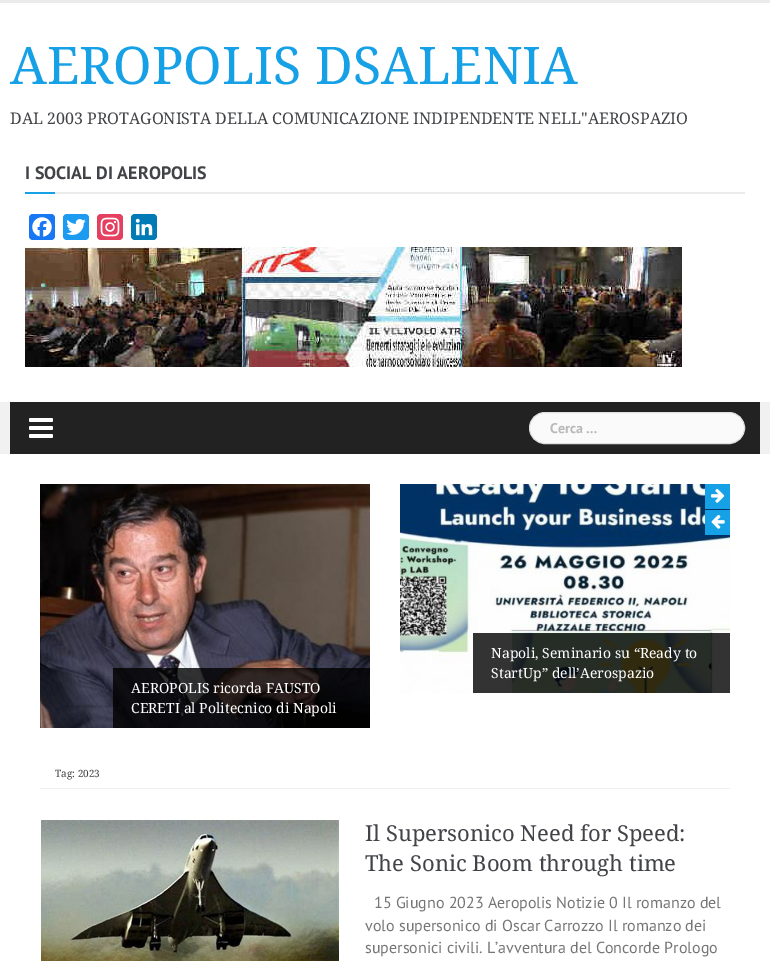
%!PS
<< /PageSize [770 961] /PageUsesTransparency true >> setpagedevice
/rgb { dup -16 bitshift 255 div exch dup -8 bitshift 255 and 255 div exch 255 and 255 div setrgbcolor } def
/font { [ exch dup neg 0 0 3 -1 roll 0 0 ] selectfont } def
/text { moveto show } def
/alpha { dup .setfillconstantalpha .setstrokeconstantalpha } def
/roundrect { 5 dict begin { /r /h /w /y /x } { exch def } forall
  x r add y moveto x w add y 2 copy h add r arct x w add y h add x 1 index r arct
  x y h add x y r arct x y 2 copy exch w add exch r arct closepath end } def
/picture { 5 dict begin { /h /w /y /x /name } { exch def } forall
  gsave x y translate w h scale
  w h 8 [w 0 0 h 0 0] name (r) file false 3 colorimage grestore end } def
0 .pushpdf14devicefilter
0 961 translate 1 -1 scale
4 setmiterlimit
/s1 { /DroidSerif-Regular 52 font 16#16A1E7 rgb } def
/s2 { /DroidSerif-Regular 16 font 16#424347 rgb } def
/s3 { /PTSans-Bold 18 font 16#424347 rgb } def
/s4 { /PTSans-Bold 14 font 16#B9B9B9 rgb } def
/s5 { /DroidSerif-Regular 14 font 16#FFFFFF rgb } def
/s6 { /DroidSerif-Regular 10 font 16#424347 rgb } def
/s7 { /DroidSerif-Regular 22 font 16#424347 rgb } def
/s8 { /PTSans-Regular 16 font 16#767676 rgb } def
16#FFFFFF rgb
0 0 770 961 rectfill
16#EBEBEB rgb
0 0 770 3 rectfill
s1
(AEROPOLIS DSALENIA) 10 84 text
s2
(DAL 2003 PROTAGONISTA DELLA COMUNICAZIONE INDIPENDENTE NELL''AEROSPAZIO) 10 124 text
16#EBEBEB rgb
55 192 690 2 rectfill
s3
(I SOCIAL DI AEROPOLIS) 25 179 text
16#16A1E7 rgb
25 192 30 2 rectfill
16#1877F2 rgb
29 214 26 26 4 roundrect fill
(pic1.raw) 32 217 20 20 picture
16#1D9BF0 rgb
63 214 26 26 4 roundrect fill
(pic2.raw) 66 219 20 16 picture
16#E4405F rgb
97 214 26 26 4 roundrect fill
(pic3.raw) 100 217 20 20 picture
16#007BB5 rgb
131 214 26 26 4 roundrect fill
(pic4.raw) 135 218 18 18 picture
(pic5.raw) 25 247 657 120 picture
16#F1F1F1 rgb
0 402 770 52 rectfill
16#222222 rgb
10 402 750 52 rectfill
(pic6.raw) 29 418 24 20 picture
16#FAFAFA rgb
529.5 412.5 215 31 15.5 roundrect gsave fill grestore
16#DFDFDF rgb
stroke
s4
(Cerca …) 550 433 text
(pic9.raw) 400 484 330 209 picture
16#16A1E7 rgb
705 484 25 25 rectfill
(pic7.raw) 711 488 14 15 picture
705 510 25 25 rectfill
(pic8.raw) 711 514 14 15 picture
0.8 alpha
16#000000 rgb
473 633 257 60 rectfill
1 alpha
s5
(Napoli, Seminario su “Ready to) 491 658 text
(StartUp” dell’Aerospazio) 491 678 text
(pic10.raw) 40 484 330 244 picture
0.8 alpha
16#000000 rgb
113 668 257 60 rectfill
1 alpha
s5
(AEROPOLIS ricorda FAUSTO) 131 693 text
(CERETI al Politecnico di Napoli) 131 713 text
16#EEEEEE rgb
40 788 690 1 rectfill
s6
(Tag: 2023) 55 777 text
(pic11.raw) 40 819 299 142 picture
s7
(Il Supersonico Need for Speed:) 365 841 text
(The Sonic Boom through time) 365 871 text
s8
(15 Giugno 2023 Aeropolis Notizie 0 Il romanzo del) 374 908 text
(volo supersonico di Oscar Carrozzo Il romanzo dei) 365 931 text
(supersonici civili. L’avventura del Concorde Prologo) 365 953 text
.poppdf14devicefilter showpage
